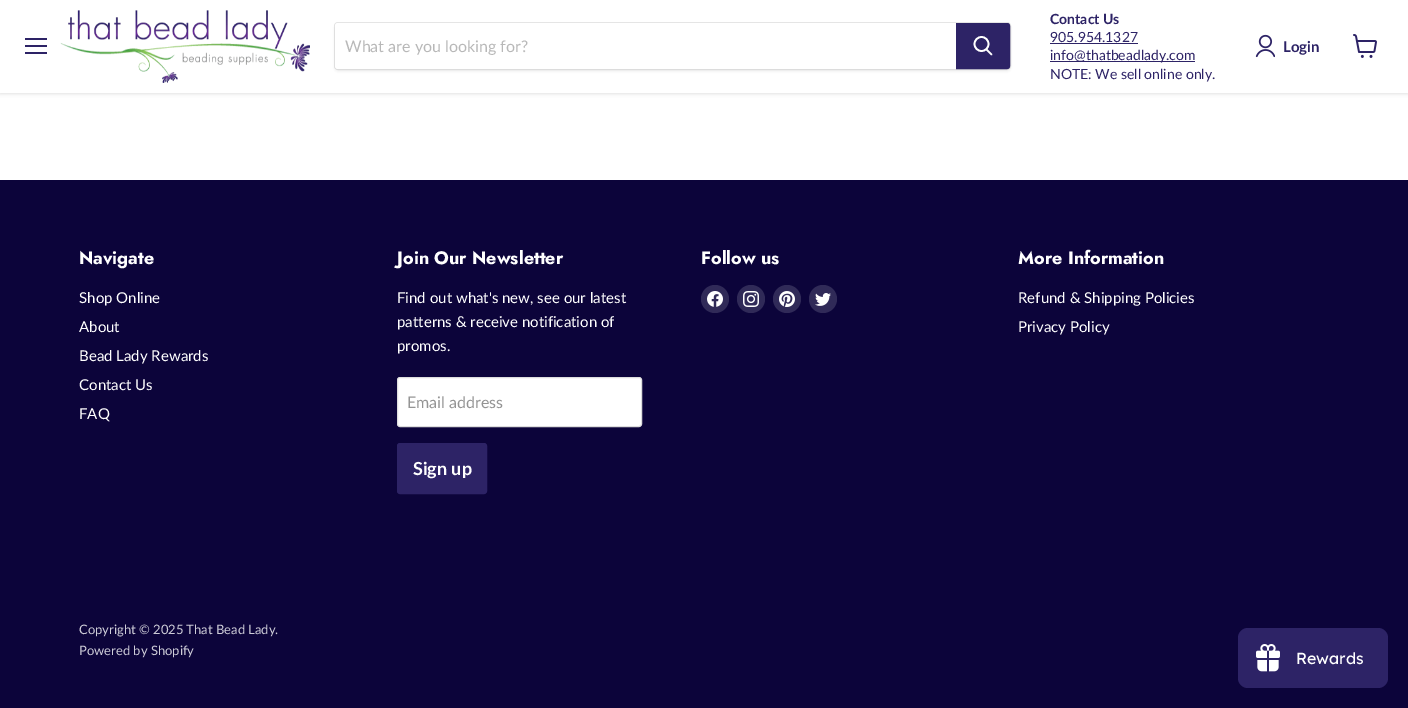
%!PS
<< /PageSize [1408 708] /PageUsesTransparency true >> setpagedevice
/rgb { dup -16 bitshift 255 div exch dup -8 bitshift 255 and 255 div exch 255 and 255 div setrgbcolor } def
/font { [ exch dup neg 0 0 3 -1 roll 0 0 ] selectfont } def
/text { moveto show } def
/alpha { dup .setfillconstantalpha .setstrokeconstantalpha } def
/circle { newpath 0 360 arc closepath } def
/roundrect { 5 dict begin { /r /h /w /y /x } { exch def } forall
  x r add y moveto x w add y 2 copy h add r arct x w add y h add x 1 index r arct
  x y h add x y r arct x y 2 copy exch w add exch r arct closepath end } def
/shadow { 12 dict begin { /a /b /q /h /w /y /x } { exch def } forall gsave /was 0 def
  9 -2 -9 { dup b mul 4 div /e exch def 1 sub .425 mul 2.718 exch exp 1 add a .99 .min exch div /now exch def
    1 1 now sub 1 was sub div sub alpha /was now def
    w h .min e 2 mul add 0 gt { x e sub y e sub w e 2 mul add h e 2 mul add
      q e add b .6 mul add w h .min 2 div e add .min 0 .max roundrect fill } if } for grestore end } def
/picture { 5 dict begin { /h /w /y /x /name } { exch def } forall
  gsave x y translate w h scale
  w h 8 [w 0 0 h 0 0] name (r) file false 3 colorimage grestore end } def
0 .pushpdf14devicefilter
0 708 translate 1 -1 scale
4 setmiterlimit
/s1 { /Lato-Regular 16 font 16#B8B8B8 rgb } def
/s2 { /Lato-Bold 14 font 16#2D2366 rgb } def
/s3 { /Lato-Regular 14 font 16#2D2366 rgb } def
/s4 { /Lato-Bold 15 font 16#2D2366 rgb } def
/s5 { /Jost-Bold 18 font 16#FFFFFF rgb } def
/s6 { /Lato-Regular 15 font 16#FFFFFF rgb } def
/s7 { /Lato-Regular 16 font 16#949494 rgb } def
/s8 { /Lato-Bold 18 font 16#FFFFFF rgb } def
/s9 { /Lato-Regular 13 font 16#CECDD8 rgb } def
/s10 { /Lexend-Regular 16 font 16#FFFFFF rgb } def
16#FFFFFF rgb
0 0 1408 708 rectfill
16#808080 rgb
0 1 1408 93 0 2 0.25 shadow
16#FFFFFF rgb
0 0 1408 93 rectfill
16#2D2366 rgb
25 38 22 2 rectfill
25 45 22 2 rectfill
25 52 22 2 rectfill
(pic1.raw) 60 10 250 73 picture
16#808080 rgb
334 24 677 48 4 1.5 0.11 shadow
0.2 alpha
334.5 22.5 676 47 3.5 roundrect stroke
1 alpha
16#FFFFFF rgb
338 23 moveto 956 23 lineto 956 69 lineto 338 69 lineto 336.5 69 335 67.5 335 66 curveto 335 26 lineto 335 24.5 336.5 23 338 23 curveto closepath fill
s1
(What are you looking for?) 345 52 text
16#2D2366 rgb
956.5 23.5 moveto 1007 23.5 lineto 1008.5 23.5 1009.5 24.5 1009.5 26 curveto 1009.5 66 lineto 1009.5 67.5 1008.5 68.5 1007 68.5 curveto 956.5 68.5 lineto closepath gsave fill grestore
stroke
16#FFFFFF rgb
1.7 setlinewidth
1 setlinecap
991.5 54.5 moveto 986.5 49.5 lineto stroke
0 setlinecap
981.5 44 7 circle stroke
s2
(Contact Us) 1050 24 text
s3
(905.954.1327) 1050 42 text
1050 43 88 1 rectfill
1050 61 145 1 rectfill
(info@thatbeadlady.com) 1050 60 text
(NOTE: We sell online only.) 1050 79 text
(pic2.raw) 1255 34 20 24 picture
s4
(Login) 1283 52 text
(pic3.raw) 1353 34 24 24 picture
16#0C043A rgb
0 180 1408 528 rectfill
s5
(Navigate) 79 264 text
s6
(Shop Online) 79 303 text
(About) 79 332 text
(Bead Lady Rewards) 79 361 text
(Contact Us) 79 390 text
(FAQ) 79 419 text
s5
(Join Our Newsletter) 397 264 text
s6
(Find out what's new, see our latest) 397 303 text
(patterns & receive notification of) 397 327 text
(promos.) 397 351 text
397.5 377.5 244 49 2.5 roundrect gsave fill grestore
16#DDDDDD rgb
1 setlinewidth
stroke
s7
(Email address) 407 408 text
16#2D2366 rgb
397.5 443.5 89 50 2.5 roundrect gsave fill grestore
stroke
s8
(Sign up) 413 475 text
s5
(Follow us) 701 264 text
16#302A58 rgb
715 299 14 circle fill
(pic4.raw) 707 291 16 16 picture
751 299 14 circle fill
(pic5.raw) 743 291 16 16 picture
787 299 14 circle fill
(pic6.raw) 779 291 16 16 picture
823 299 14 circle fill
(pic7.raw) 815 293 16 13 picture
s5
(More Information) 1018 264 text
s6
(Refund & Shipping Policies) 1018 303 text
(Privacy Policy) 1018 332 text
s9
(Copyright © 2025 That Bead Lady.) 79 634 text
(Powered by Shopify) 79 655 text
16#2D2366 rgb
1238 628 150 60 10 roundrect fill
(pic8.raw) 1256 644 24 28 picture
s10
(Rewards) 1296 664 text
.poppdf14devicefilter showpage
